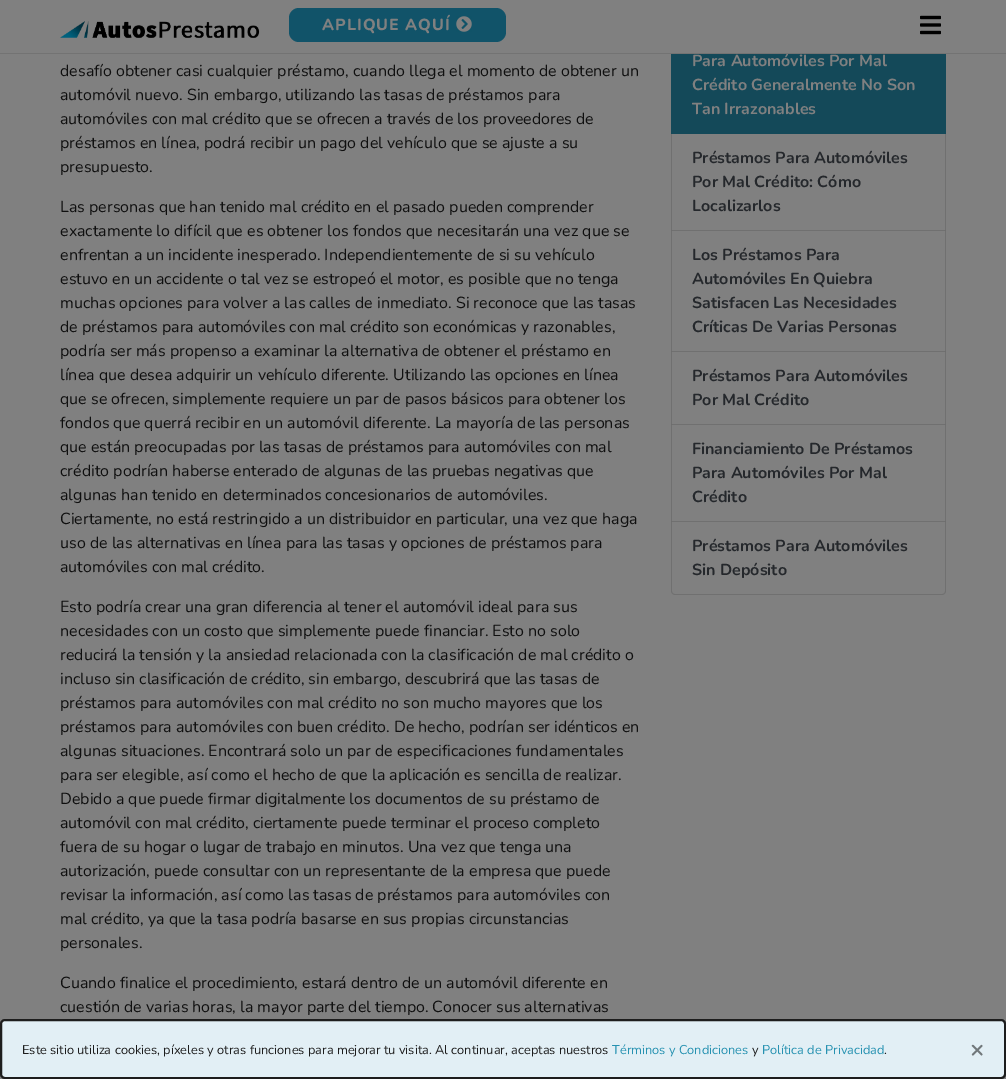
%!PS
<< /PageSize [1006 1079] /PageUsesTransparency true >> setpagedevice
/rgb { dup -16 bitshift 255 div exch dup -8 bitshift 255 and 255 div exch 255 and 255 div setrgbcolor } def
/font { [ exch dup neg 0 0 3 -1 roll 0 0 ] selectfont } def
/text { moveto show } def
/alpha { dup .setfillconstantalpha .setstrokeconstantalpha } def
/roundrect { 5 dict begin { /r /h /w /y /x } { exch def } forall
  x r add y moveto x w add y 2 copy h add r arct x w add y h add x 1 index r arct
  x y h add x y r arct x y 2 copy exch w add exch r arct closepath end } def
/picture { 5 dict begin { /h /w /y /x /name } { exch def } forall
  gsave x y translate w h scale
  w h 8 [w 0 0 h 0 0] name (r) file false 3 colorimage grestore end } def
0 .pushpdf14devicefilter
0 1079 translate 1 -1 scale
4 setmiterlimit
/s1 { /Nunito-Bold 16 font 16#808080 rgb } def
/s2 { /Nunito-Regular 16 font 16#0F0F0F rgb } def
/s3 { /Nunito-Bold 16 font 16#25282C rgb } def
/s4 { /Nunito-Regular 12.8 font 16#1D1D1D rgb } def
/s5 { /Nunito-Regular 12.8 font 16#2792B1 rgb } def
/s6 { /Nunito-Bold 24 font 16#71787B rgb } def
16#808080 rgb
0 0 1006 1079 rectfill
16#144959 rgb
671 54 275 80 rectfill
s1
(Para Automóviles Por Mal) 692 66 text
16#737373 rgb
0 53 1006 1 rectfill
(pic1.raw) 60 21 200 17 picture
16#115369 rgb
289 8 217 34 10 roundrect fill
/Nunito-ExtraBold 16 font
16#808080 rgb
322 30 moveto 1 0 (APLIQUE AQUÍ) ashow
(pic2.raw) 456 16 16 16 picture
(pic3.raw) 920 15 21 20 picture
s2
(desafío obtener casi cualquier préstamo, cuando llega el momento de obtener un) 60 76 text
(automóvil nuevo. Sin embargo, utilizando las tasas de préstamos para) 60 100 text
(automóviles con mal crédito que se ofrecen a través de los proveedores de) 60 124 text
(préstamos en línea, podrá recibir un pago del vehículo que se ajuste a su) 60 148 text
(presupuesto.) 60 172 text
(Las personas que han tenido mal crédito en el pasado pueden comprender) 60 212 text
(exactamente lo difícil que es obtener los fondos que necesitarán una vez que se) 60 236 text
(enfrentan a un incidente inesperado. Independientemente de si su vehículo) 60 260 text
(estuvo en un accidente o tal vez se estropeó el motor, es posible que no tenga) 60 284 text
(muchas opciones para volver a las calles de inmediato. Si reconoce que las tasas) 60 308 text
(de préstamos para automóviles con mal crédito son económicas y razonables,) 60 332 text
(podría ser más propenso a examinar la alternativa de obtener el préstamo en) 60 356 text
(línea que desea adquirir un vehículo diferente. Utilizando las opciones en línea) 60 380 text
(que se ofrecen, simplemente requiere un par de pasos básicos para obtener los) 60 404 text
(fondos que querrá recibir en un automóvil diferente. La mayoría de las personas) 60 428 text
(que están preocupadas por las tasas de préstamos para automóviles con mal) 60 452 text
(crédito podrían haberse enterado de algunas de las pruebas negativas que) 60 476 text
(algunas han tenido en determinados concesionarios de automóviles.) 60 500 text
(Ciertamente, no está restringido a un distribuidor en particular, una vez que haga) 60 524 text
(uso de las alternativas en línea para las tasas y opciones de préstamos para) 60 548 text
(automóviles con mal crédito.) 60 572 text
(Esto podría crear una gran diferencia al tener el automóvil ideal para sus) 60 612 text
(necesidades con un costo que simplemente puede financiar. Esto no solo) 60 636 text
(reducirá la tensión y la ansiedad relacionada con la clasificación de mal crédito o) 60 660 text
(incluso sin clasificación de crédito, sin embargo, descubrirá que las tasas de) 60 684 text
(préstamos para automóviles con mal crédito no son mucho mayores que los) 60 708 text
(préstamos para automóviles con buen crédito. De hecho, podrían ser idénticos en) 60 732 text
(algunas situaciones. Encontrará solo un par de especificaciones fundamentales) 60 756 text
(para ser elegible, así como el hecho de que la aplicación es sencilla de realizar.) 60 780 text
(Debido a que puede firmar digitalmente los documentos de su préstamo de) 60 804 text
(automóvil con mal crédito, ciertamente puede terminar el proceso completo) 60 828 text
(fuera de su hogar o lugar de trabajo en minutos. Una vez que tenga una) 60 852 text
(autorización, puede consultar con un representante de la empresa que puede) 60 876 text
(revisar la información, así como las tasas de préstamos para automóviles con) 60 900 text
(mal crédito, ya que la tasa podría basarse en sus propias circunstancias) 60 924 text
(personales.) 60 948 text
(Cuando finalice el procedimiento, estará dentro de un automóvil diferente en) 60 988 text
(cuestión de varias horas, la mayor parte del tiempo. Conocer sus alternativas) 60 1012 text
s1
(Crédito Generalmente No Son) 692 90 text
(Tan Irrazonables) 692 114 text
16#707070 rgb
946 134 moveto 946 231 lineto 945 230 lineto 945 134 lineto closepath fill
0.12 alpha
16#000000 rgb
946 231 moveto 671 231 lineto 672 230 lineto 945 230 lineto closepath fill
671 231 moveto 671 134 lineto 672 134 lineto 672 230 lineto closepath fill
1 alpha
s3
(Préstamos Para Automóviles) 692 163 text
(Por Mal Crédito: Cómo) 692 187 text
(Localizarlos) 692 211 text
16#707070 rgb
946 231 moveto 946 352 lineto 945 351 lineto 945 231 lineto closepath fill
0.12 alpha
16#000000 rgb
946 352 moveto 671 352 lineto 672 351 lineto 945 351 lineto closepath fill
671 352 moveto 671 231 lineto 672 231 lineto 672 351 lineto closepath fill
1 alpha
s3
(Los Préstamos Para) 692 260 text
(Automóviles En Quiebra) 692 284 text
(Satisfacen Las Necesidades) 692 308 text
(Críticas De Varias Personas) 692 332 text
16#707070 rgb
946 352 moveto 946 425 lineto 945 424 lineto 945 352 lineto closepath fill
0.12 alpha
16#000000 rgb
946 425 moveto 671 425 lineto 672 424 lineto 945 424 lineto closepath fill
671 425 moveto 671 352 lineto 672 352 lineto 672 424 lineto closepath fill
1 alpha
s3
(Préstamos Para Automóviles) 692 381 text
(Por Mal Crédito) 692 405 text
16#707070 rgb
946 425 moveto 946 522 lineto 945 521 lineto 945 425 lineto closepath fill
0.12 alpha
16#000000 rgb
946 522 moveto 671 522 lineto 672 521 lineto 945 521 lineto closepath fill
671 522 moveto 671 425 lineto 672 425 lineto 672 521 lineto closepath fill
1 alpha
s3
(Financiamiento De Préstamos) 692 454 text
(Para Automóviles Por Mal) 692 478 text
(Crédito) 692 502 text
16#707070 rgb
671 522 moveto 946 522 lineto 946 591 lineto 946 593 944 595 942 595 curveto 675 595 lineto 673 595 671 593 671 591 curveto closepath 672 522 moveto 945 522 lineto 945 591 lineto 945 593 944 594 942 594 curveto 675 594 lineto 673 594 672 593 672 591 curveto closepath eofill
s3
(Préstamos Para Automóviles) 692 551 text
(Sin Depósito) 692 575 text
16#E2EFF5 rgb
1 1020 1004 58 4 roundrect gsave fill grestore
16#1D1D1D rgb
2 setlinewidth
stroke
s4
(Este sitio utiliza cookies, píxeles y otras funciones para mejorar tu visita. Al continuar, aceptas nuestros) 22 1054 text
s5
(Términos y Condiciones) 612 1054 text
s4
(y) 752 1054 text
s5
(Política de Privacidad) 762 1054 text
s4
(.) 884 1054 text
s6
(×) 970 1057 text
.poppdf14devicefilter showpage
